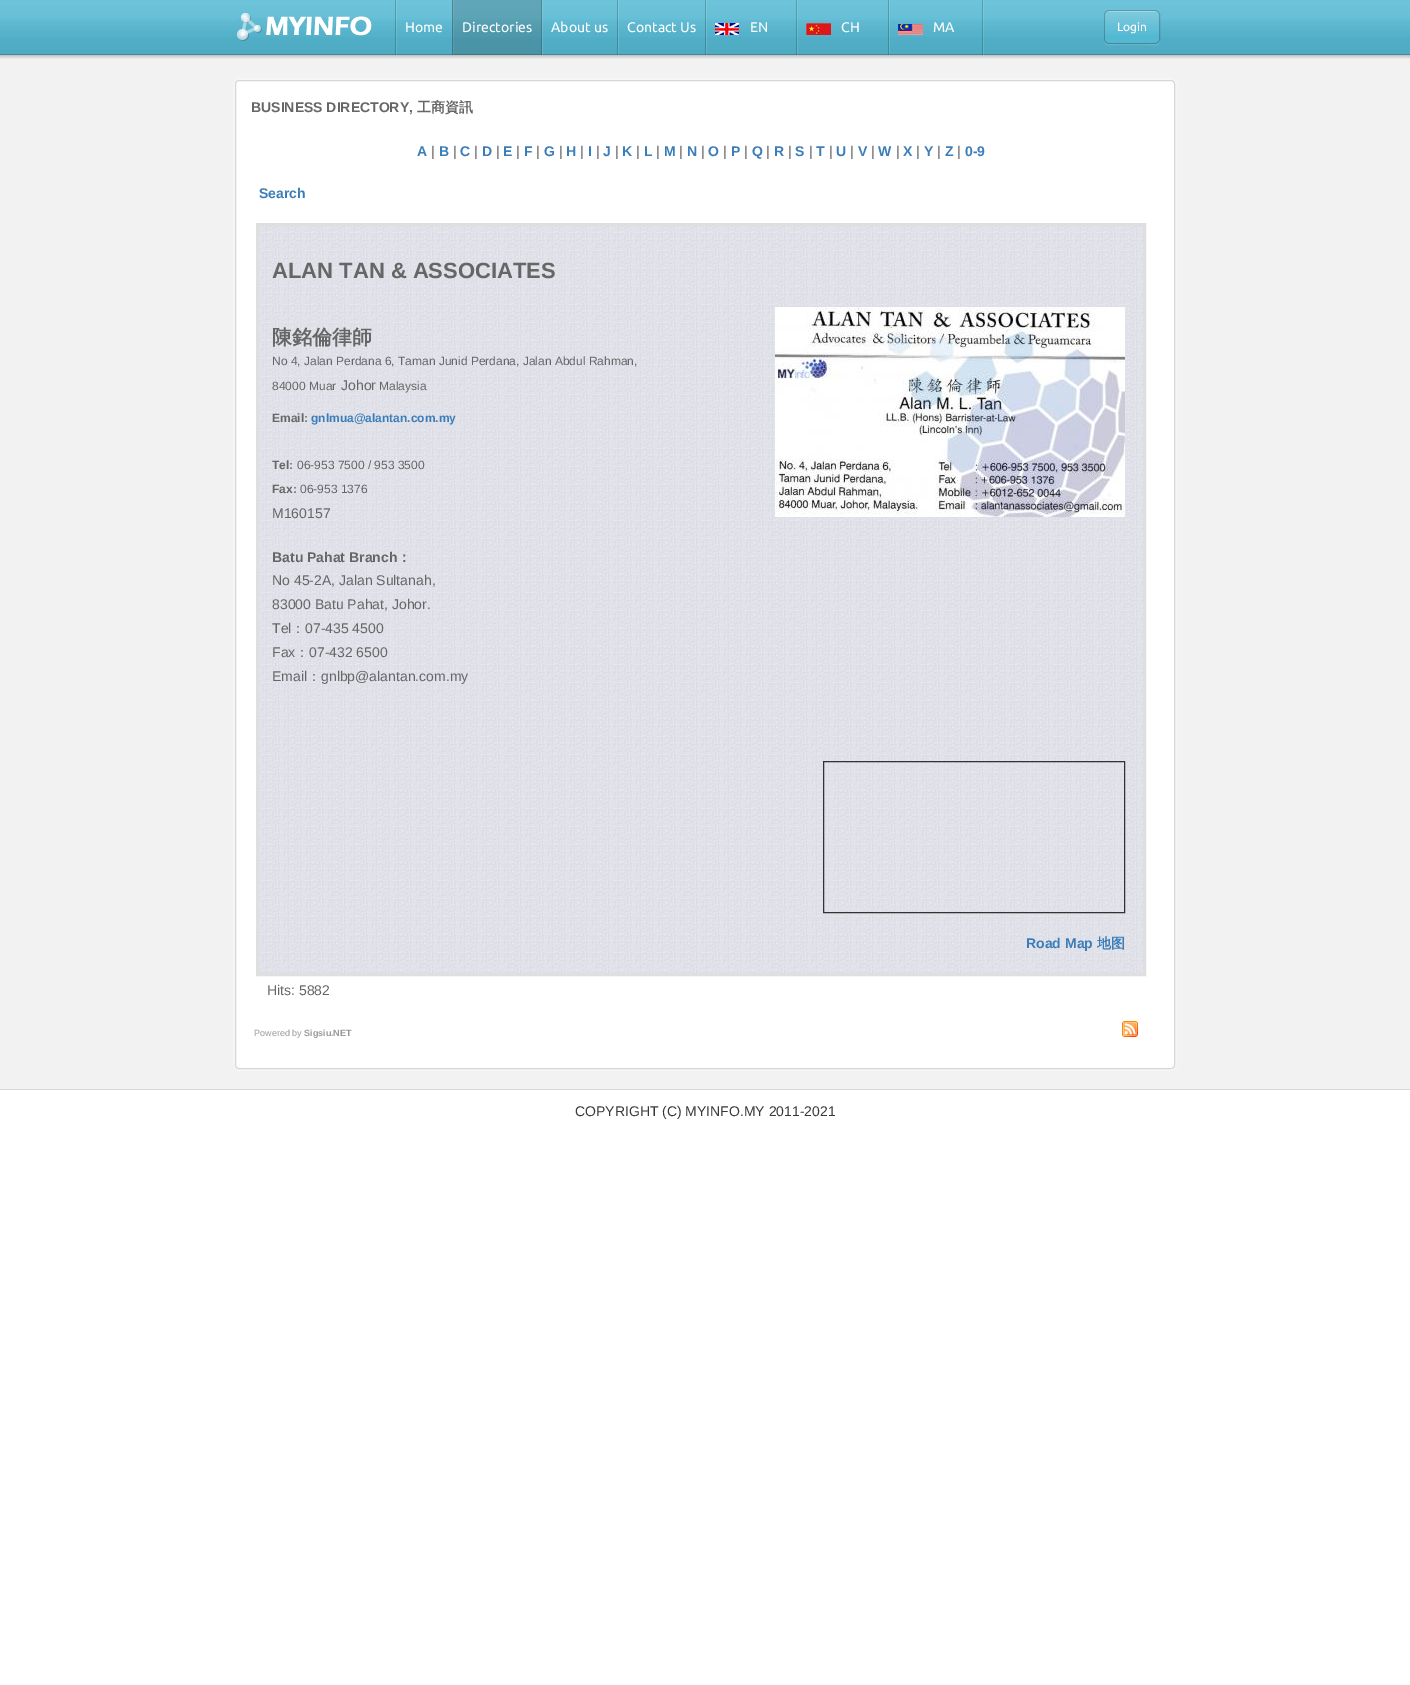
%!PS
<< /PageSize [1410 1685] /PageUsesTransparency true >> setpagedevice
/rgb { dup -16 bitshift 255 div exch dup -8 bitshift 255 and 255 div exch 255 and 255 div setrgbcolor } def
/font { [ exch dup neg 0 0 3 -1 roll 0 0 ] selectfont } def
/text { moveto show } def
/alpha { dup .setfillconstantalpha .setstrokeconstantalpha } def
/roundrect { 5 dict begin { /r /h /w /y /x } { exch def } forall
  x r add y moveto x w add y 2 copy h add r arct x w add y h add x 1 index r arct
  x y h add x y r arct x y 2 copy exch w add exch r arct closepath end } def
/shadow { 12 dict begin { /a /b /q /h /w /y /x } { exch def } forall gsave /was 0 def
  9 -2 -9 { dup b mul 4 div /e exch def 1 sub .425 mul 2.718 exch exp 1 add a .99 .min exch div /now exch def
    1 1 now sub 1 was sub div sub alpha /was now def
    w h .min e 2 mul add 0 gt { x e sub y e sub w e 2 mul add h e 2 mul add
      q e add b .6 mul add w h .min 2 div e add .min 0 .max roundrect fill } if } for grestore end } def
/picture { 5 dict begin { /h /w /y /x /name } { exch def } forall
  gsave x y translate w h scale
  w h 8 [w 0 0 h 0 0] name (r) file false 3 colorimage grestore end } def
0 .pushpdf14devicefilter
0 1685 translate 1 -1 scale
4 setmiterlimit
/s1 { /Ubuntu-Regular 14 font 16#FFFFFF rgb } def
/s2 { /Ubuntu-Regular 12 font 16#FFFFFF rgb } def
/s3 { /LiberationSans-Bold 14 font 16#666666 rgb } def
/s4 { /WenQuanYiZenHei-Bold 14 font 16#666666 rgb } def
/s5 { /LiberationSans-Bold 14 font 16#3B7DB8 rgb } def
/s6 { /LiberationSans-Regular 14 font 16#666666 rgb } def
/s7 { /LiberationSans-Bold 22 font 16#666666 rgb } def
/s8 { /WenQuanYiZenHei-Bold 20 font 16#666666 rgb } def
/s9 { /LiberationSans-Regular 12 font 16#666666 rgb } def
/s10 { /LiberationSans-Bold 12 font 16#666666 rgb } def
/s11 { /LiberationSans-Bold 12 font 16#3B7DB8 rgb } def
/s12 { /WenQuanYiZenHei-Medium 14 font 16#666666 rgb } def
/s13 { /WenQuanYiZenHei-Bold 14 font 16#3B7DB8 rgb } def
/s14 { /LiberationSans-Regular 9 font 16#999999 rgb } def
/s15 { /LiberationSans-Bold 9 font 16#999999 rgb } def
/s16 { /LiberationSans-Regular 14 font 16#383838 rgb } def
16#FFFFFF rgb
0 0 1410 1685 rectfill
16#53B8D2 rgb
0 0 1410 55 rectfill
(pic1.raw) 0 0 1410 37 picture
(pic2.raw) 0 20 1410 35 picture
(pic3.raw) 237 13 135 28 picture
(pic4.raw) 395 0 2 55 picture
(pic4.raw) 452 0 2 55 picture
s1
(Home) 405 32 text
(pic4.raw) 541 0 2 55 picture
0.2 alpha
16#323232 rgb
452 0 90 55 rectfill
1 alpha
s1
(Directories) 462 32 text
(pic4.raw) 617 0 2 55 picture
(About us) 551 32 text
(pic4.raw) 705 0 2 55 picture
(Contact Us) 627 32 text
(pic4.raw) 796 0 2 55 picture
(pic5.raw) 715 23 24 12 picture
(EN) 750 32 text
(pic4.raw) 888 0 2 55 picture
(pic6.raw) 806 23 25 12 picture
(CH) 841 32 text
(pic4.raw) 982 0 2 55 picture
(pic7.raw) 898 24 25 11 picture
(MA) 933 32 text
16#73BDD0 rgb
1104 39 moveto 1104 47 1111 45 1117 45 curveto 1147 45 lineto 1153 45 1160 47 1160 39 curveto 1160 42 1158 44 1155 44 curveto 1109 44 lineto 1106 44 1104 42 1104 39 curveto closepath fill
0.2 alpha
16#000000 rgb
1104.5 10.5 55 33 4.5 roundrect stroke
1 alpha
16#53B8D2 rgb
1105 11 54 32 5 roundrect fill
(pic8.raw) 1105 11 54 24 picture
s2
(Login) 1117 31 text
16#F2F2F2 rgb
0 55 1410 1034 rectfill
(pic9.raw) 0 55 1410 4 picture
16#D7D7D7 rgb
0 1089 1410 1 rectfill
16#FFFFFF rgb
235 80 940 989 4 2.5 0.8 shadow
235.5 80.5 939 988 3.5 roundrect gsave fill grestore
16#D7D7D7 rgb
stroke
s3
(BUSINESS DIRECTORY,) 251 112 text
s4
(工商資訊) 417 112 text
s5
(A) 417 156 text
s6
(|) 431 156 text
s5
(B) 439 156 text
s6
(|) 453 156 text
s5
(C) 460 156 text
s6
(|) 474 156 text
s5
(D) 482 156 text
s6
(|) 496 156 text
s5
(E) 503 156 text
s6
(|) 516 156 text
s5
(F) 524 156 text
s6
(|) 536 156 text
s5
(G) 544 156 text
s6
(|) 559 156 text
s5
(H) 566 156 text
s6
(|) 580 156 text
s5
(I) 588 156 text
s6
(|) 596 156 text
s5
(J) 603 156 text
s6
(|) 615 156 text
s5
(K) 622 156 text
s6
(|) 636 156 text
s5
(L) 644 156 text
s6
(|) 656 156 text
s5
(M) 664 156 text
s6
(|) 679 156 text
s5
(N) 687 156 text
s6
(|) 701 156 text
s5
(O) 708 156 text
s6
(|) 723 156 text
s5
(P) 731 156 text
s6
(|) 744 156 text
s5
(Q) 752 156 text
s6
(|) 766 156 text
s5
(R) 774 156 text
s6
(|) 788 156 text
s5
(S) 795 156 text
s6
(|) 809 156 text
s5
(T) 816 156 text
s6
(|) 829 156 text
s5
(U) 836 156 text
s6
(|) 850 156 text
s5
(V) 858 156 text
s6
(|) 871 156 text
s5
(W) 878 156 text
s6
(|) 896 156 text
s5
(X) 903 156 text
s6
(|) 916 156 text
s5
(Y) 924 156 text
s6
(|) 937 156 text
s5
(Z) 945 156 text
s6
(|) 957 156 text
s5
(0-9) 965 156 text
(Search) 259 198 text
(pic10.raw) 259 226 884 747 picture
16#DFDFDF rgb
3 setlinewidth
257.5 224.5 887 750 rectstroke
s7
(ALAN TAN & ASSOCIATES) 272 278 text
s8
(陳銘倫律師) 272 344 text
(pic11.raw) 775 307 350 210 picture
s9
(No 4, Jalan Perdana 6, Taman Junid Perdana, Jalan Abdul Rahman,) 272 365 text
(84000) 272 390 text
(Muar) 309 390 text
s6
(Johor) 341 390 text
s9
(Malaysia) 379 390 text
s10
(Email:) 272 422 text
s11
(gnlmua@alantan.com.my) 311 422 text
s10
(Tel:) 272 469 text
s9
(06-953 7500 / 953 3500) 297 469 text
s10
(Fax:) 272 493 text
s9
(06-953 1376) 300 493 text
s6
(M160157) 272 518 text
s3
(Batu Pahat Branch) 272 562 text
s4
(：) 397 562 text
s6
(No 45-2A, Jalan Sultanah,) 272 585 text
(83000 Batu Pahat, Johor.) 272 609 text
(Tel) 272 633 text
s12
(：) 291 633 text
s6
(07-435 4500) 305 633 text
(Fax) 272 657 text
s12
(：) 295 657 text
s6
(07-432 6500) 309 657 text
(Email) 272 681 text
s12
(：) 307 681 text
s6
(gnlbp@alantan.com.my) 321 681 text
16#333333 rgb
1 setlinewidth
823.5 761.5 301 151 rectstroke
s5
(Road Map) 1026 948 text
s13
(地图) 1097 948 text
s6
(Hits: 5882) 267 995 text
s14
(Powered by) 254 1036 text
s15
(Sigsiu.NET) 304 1036 text
(pic12.raw) 1122 1021 16 16 picture
s16
(COPYRIGHT \(C\) MYINFO.MY 2011-2021) 575 1116 text
.poppdf14devicefilter showpage
